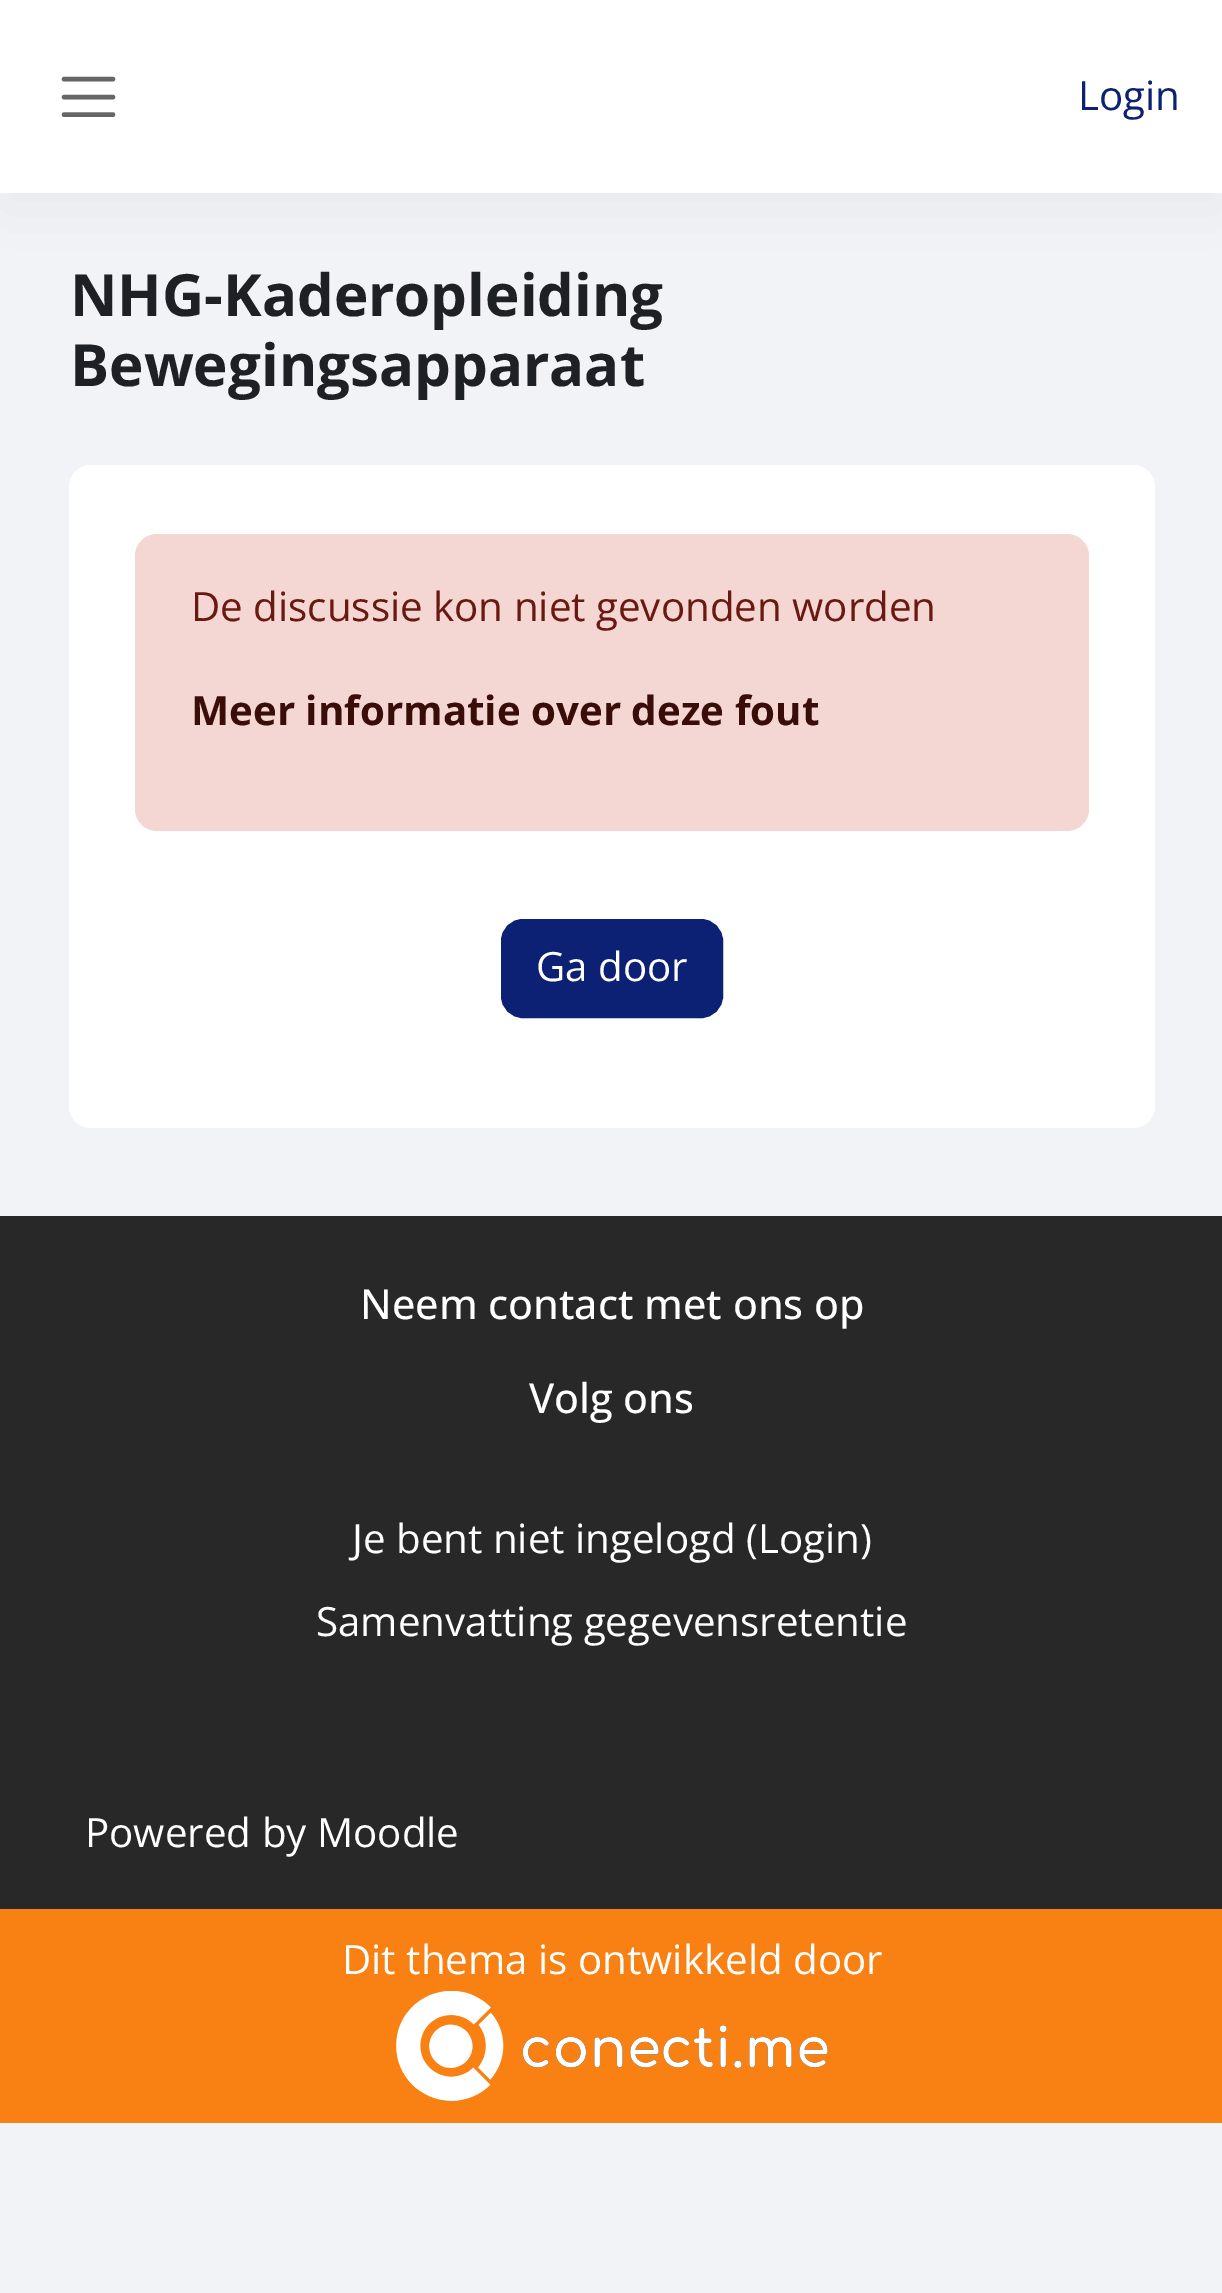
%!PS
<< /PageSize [1222 2293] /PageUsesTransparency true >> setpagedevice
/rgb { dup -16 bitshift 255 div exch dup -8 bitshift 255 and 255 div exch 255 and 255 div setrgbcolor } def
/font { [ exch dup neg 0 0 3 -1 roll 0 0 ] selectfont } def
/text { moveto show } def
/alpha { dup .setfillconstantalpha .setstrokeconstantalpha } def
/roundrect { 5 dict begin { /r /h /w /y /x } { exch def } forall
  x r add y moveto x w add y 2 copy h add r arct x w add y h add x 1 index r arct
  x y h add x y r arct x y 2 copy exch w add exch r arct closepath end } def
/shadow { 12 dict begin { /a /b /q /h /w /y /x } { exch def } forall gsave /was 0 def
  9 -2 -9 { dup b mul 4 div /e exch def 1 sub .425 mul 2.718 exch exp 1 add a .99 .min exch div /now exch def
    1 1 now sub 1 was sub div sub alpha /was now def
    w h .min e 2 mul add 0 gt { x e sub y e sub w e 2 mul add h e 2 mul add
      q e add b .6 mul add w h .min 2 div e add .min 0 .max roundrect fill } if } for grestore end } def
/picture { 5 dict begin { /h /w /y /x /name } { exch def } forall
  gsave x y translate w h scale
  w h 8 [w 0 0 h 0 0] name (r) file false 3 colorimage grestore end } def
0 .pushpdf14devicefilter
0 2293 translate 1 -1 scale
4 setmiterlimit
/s1 { /OpenSans-Regular 40.3 font 16#0C2074 rgb } def
/s2 { /OpenSans-Bold 58.25 font 16#1D2125 rgb } def
/s3 { /OpenSans-Regular 40.3 font 16#691911 rgb } def
/s4 { /OpenSans-Bold 40.3 font 16#390E09 rgb } def
/s5 { /OpenSans-Regular 40.3 font 16#FFFFFF rgb } def
/s6 { /OpenSans-Medium 41.25 font 16#FFFFFF rgb } def
16#F2F3F7 rgb
0 0 1222 2293 rectfill
16#8C98A4 rgb
0 17 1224 192 0 33 0.13 shadow
16#FFFFFF rgb
0 0 1222 193 rectfill
16#666666 rgb
4.5 setlinewidth
1 setlinecap
64 79 moveto 113 79 lineto 64 97 moveto 113 97 lineto 64 114.5 moveto 113 114.5 lineto stroke
s1
(Login) 1078 110 text
s2
(NHG-Kaderopleiding) 70 316 text
(Bewegingsapparaat) 70 386 text
16#FFFFFF rgb
69 465 1086 663 22 roundrect fill
16#F4D6D2 rgb
135 534 954 297 22 roundrect fill
s3
(De discussie kon niet gevonden worden) 191 621 text
s4
(Meer informatie over deze fout) 191 725 text
16#0C2074 rgb
502.5 920.5 219 96 20.5 roundrect gsave fill grestore
3 setlinewidth
0 setlinecap
stroke
s5
(Ga door) 536 981 text
16#282829 rgb
0 1216 1222 693 rectfill
s6
(Neem contact met ons op) 360 1319 text
(Volg ons) 529 1413 text
s5
(Je bent niet ingelogd \(Login\)) 352 1553 text
(Samenvatting gegevensretentie) 316 1636 text
(Powered by Moodle) 85 1847 text
16#F98012 rgb
0 1909 1222 214 rectfill
s5
(Dit thema is ontwikkeld door) 342 1974 text
(pic1.raw) 396 1991 432 110 picture
.poppdf14devicefilter showpage
